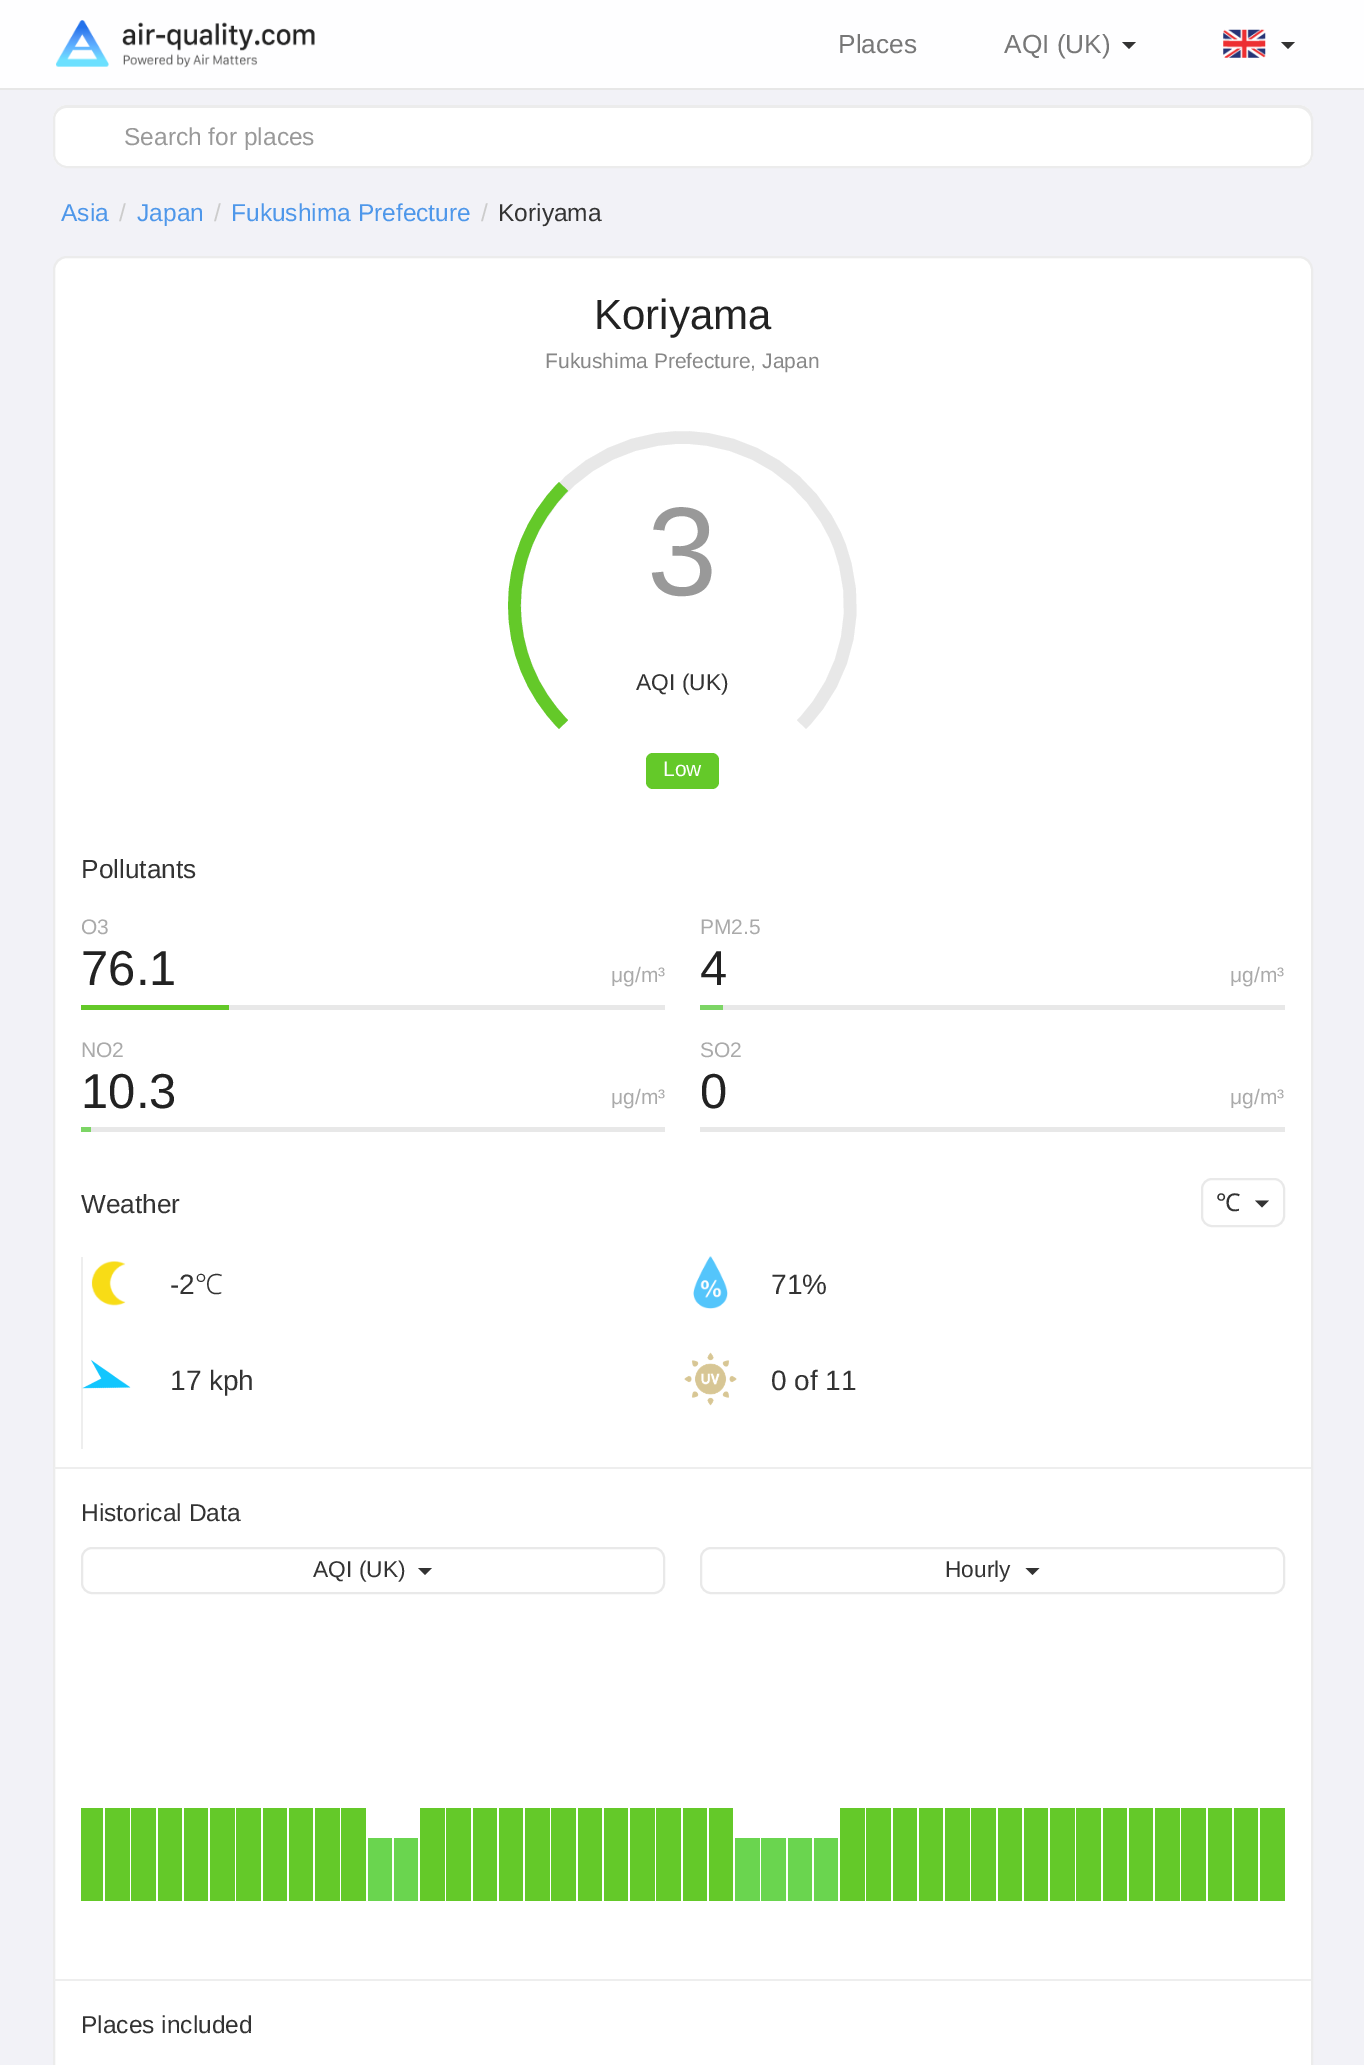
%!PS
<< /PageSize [1364 2065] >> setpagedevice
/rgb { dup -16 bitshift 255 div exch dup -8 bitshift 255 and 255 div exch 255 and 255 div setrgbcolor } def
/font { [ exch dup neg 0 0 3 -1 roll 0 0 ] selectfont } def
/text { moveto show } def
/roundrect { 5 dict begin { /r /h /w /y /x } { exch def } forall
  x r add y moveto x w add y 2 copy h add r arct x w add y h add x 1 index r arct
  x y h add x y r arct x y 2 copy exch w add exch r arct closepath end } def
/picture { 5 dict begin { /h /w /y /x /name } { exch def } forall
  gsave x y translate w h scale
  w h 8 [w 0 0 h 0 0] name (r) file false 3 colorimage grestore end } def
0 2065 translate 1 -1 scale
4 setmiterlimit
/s1 { /LiberationSans-Regular 26.25 font 16#777777 rgb } def
/s2 { /LiberationSans-Regular 24.5 font 16#999999 rgb } def
/s3 { /LiberationSans-Regular 24.5 font 16#4E97EA rgb } def
/s4 { /LiberationSans-Regular 24.5 font 16#CCCCCC rgb } def
/s5 { /LiberationSans-Regular 24.5 font 16#333333 rgb } def
/s6 { /LiberationSans-Regular 42 font 16#222222 rgb } def
/s7 { /LiberationSans-Regular 21 font 16#888888 rgb } def
/s8 { /LiberationSans-Regular 126 font 16#999999 rgb } def
/s9 { /LiberationSans-Regular 22.75 font 16#333333 rgb } def
/s10 { /LiberationSans-Regular 21 font 16#FFFFFF rgb } def
/s11 { /LiberationSans-Regular 26.25 font 16#333333 rgb } def
/s12 { /LiberationSans-Regular 21 font 16#AAAAAA rgb } def
/s13 { /LiberationSans-Regular 49 font 16#222222 rgb } def
/s14 { /NotoSans-Regular 24.5 font 16#333333 rgb } def
/s15 { /LiberationSans-Regular 28 font 16#333333 rgb } def
/s16 { /NotoSans-Light 28 font 16#333333 rgb } def
16#F2F2F7 rgb
0 0 1364 2065 rectfill
16#FEFEFF rgb
0 0 1364 88 rectfill
16#E7E7E7 rgb
0 88 1364 2 rectfill
(pic1.raw) 56 20 259 48 picture
s1
(Places) 838 53 text
(AQI \(UK\)) 1004 53 text
16#333333 rgb
1122 42 moveto 1136 42 lineto 1129 49 lineto closepath fill
(pic2.raw) 1223 29 43 29 picture
1281 42 moveto 1295 42 lineto 1288 49 lineto closepath fill
16#FFFFFF rgb
53 105 1260 63 14 roundrect fill
16#ECECEC rgb
66 108 moveto 1298 108 lineto 1305 108 1311 114 1311 121 curveto 1311 114 1307 107 1299 107 curveto 66 107 lineto 58 107 54 114 54 121 curveto 54 114 60 108 66 108 curveto closepath fill
2 setlinewidth
54 106 1258 61 13 roundrect stroke
s2
(Search for places) 124 145 text
s3
(Asia) 61 221 text
s4
(/) 119 221 text
s3
(Japan) 137 221 text
s4
(/) 214 221 text
s3
(Fukushima Prefecture) 231 221 text
s4
(/) 481 221 text
s5
(Koriyama) 498 221 text
16#FFFFFF rgb
54 257 1258 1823 13 roundrect gsave fill grestore
16#ECECEC rgb
stroke
s6
(Koriyama) 594 329 text
s7
(Fukushima Prefecture, Japan) 545 368 text
16#E8E8E8 rgb
12.6 setlinewidth
563.5 724.5 moveto 515.5 676 501.5 604 527.5 541 curveto 553.5 478.5 614.5 437.5 682.5 437.5 curveto 750.5 437.5 811.5 478.5 837.5 541 curveto 863.5 604 849.5 676 801.5 724.5 curveto stroke
s8
(3) 647 595 text
16#64C929 rgb
563.5 724.5 moveto 498 658.5 498 552.5 563.5 486.5 curveto stroke
s9
(AQI \(UK\)) 636 690 text
16#64C929 rgb
646 753 73 36 7 roundrect fill
s10
(Low) 663 776 text
s11
(Pollutants) 81 878 text
s12
(O3) 81 934 text
s13
(76.1) 81 985 text
s12
(μg/m³) 611 982 text
16#64C929 rgb
81 1005 148 5 rectfill
16#E8E8E8 rgb
229 1005 436 5 rectfill
s12
(PM2.5) 700 934 text
s13
(4) 700 985 text
s12
(μg/m³) 1230 982 text
16#7CD565 rgb
700 1005 23 5 rectfill
16#E8E8E8 rgb
723 1005 562 5 rectfill
s12
(NO2) 81 1057 text
s13
(10.3) 81 1108 text
s12
(μg/m³) 611 1104 text
16#7CD565 rgb
81 1127 10 5 rectfill
16#E8E8E8 rgb
91 1127 574 5 rectfill
s12
(SO2) 700 1057 text
s13
(0) 700 1108 text
s12
(μg/m³) 1230 1104 text
16#E8E8E8 rgb
700 1127 585 5 rectfill
s11
(Weather) 81 1213 text
16#E9E9E9 rgb
2 setlinewidth
1202 1179 82 47 10 roundrect stroke
s14
(℃) 1216 1211 text
1255 1200.5 moveto 1269 1200.5 lineto 1262 1207.5 lineto closepath fill
16#EEEEEE rgb
81 1257 2 192 rectfill
(pic3.raw) 91 1261 35 45 picture
s15
(-2) 170 1294 text
s16
(℃) 195 1294 text
(pic4.raw) 693 1256 35 53 picture
s15
(71%) 771 1294 text
(pic5.raw) 82 1359 49 30 picture
(17 kph) 170 1390 text
(pic6.raw) 684 1352 53 54 picture
(0 of 11) 771 1390 text
16#EEEEEE rgb
54 1467 1257 2 rectfill
s5
(Historical Data) 81 1521 text
16#E9E9E9 rgb
82 1548 582 45 10 roundrect stroke
s9
(AQI \(UK\)) 313 1577 text
418 1568 moveto 432 1568 lineto 425 1575 lineto closepath fill
16#E9E9E9 rgb
701 1548 583 45 10 roundrect stroke
s9
(Hourly) 945 1577 text
1025.5 1568 moveto 1039.5 1568 lineto 1032.5 1575 lineto closepath fill
16#64C929 rgb
81 1808 22 93 rectfill
105 1808 25 93 rectfill
131 1808 25 93 rectfill
158 1808 24 93 rectfill
184 1808 24 93 rectfill
210 1808 25 93 rectfill
236 1808 25 93 rectfill
263 1808 24 93 rectfill
289 1808 24 93 rectfill
315 1808 25 93 rectfill
341 1808 25 93 rectfill
16#6AD54F rgb
368 1838 24 63 rectfill
394 1838 24 63 rectfill
16#64C929 rgb
420 1808 25 93 rectfill
446 1808 25 93 rectfill
473 1808 24 93 rectfill
499 1808 24 93 rectfill
525 1808 25 93 rectfill
551 1808 25 93 rectfill
578 1808 24 93 rectfill
604 1808 24 93 rectfill
630 1808 25 93 rectfill
656 1808 25 93 rectfill
683 1808 24 93 rectfill
709 1808 24 93 rectfill
16#6AD54F rgb
735 1838 25 63 rectfill
761 1838 25 63 rectfill
788 1838 24 63 rectfill
814 1838 24 63 rectfill
16#64C929 rgb
840 1808 25 93 rectfill
866 1808 25 93 rectfill
893 1808 24 93 rectfill
919 1808 24 93 rectfill
945 1808 25 93 rectfill
971 1808 25 93 rectfill
998 1808 24 93 rectfill
1024 1808 24 93 rectfill
1050 1808 25 93 rectfill
1076 1808 25 93 rectfill
1103 1808 24 93 rectfill
1129 1808 24 93 rectfill
1155 1808 25 93 rectfill
1181 1808 25 93 rectfill
1208 1808 24 93 rectfill
1234 1808 24 93 rectfill
1260 1808 25 93 rectfill
16#EEEEEE rgb
54 1979 1257 2 rectfill
s5
(Places included) 81 2033 text
showpage
